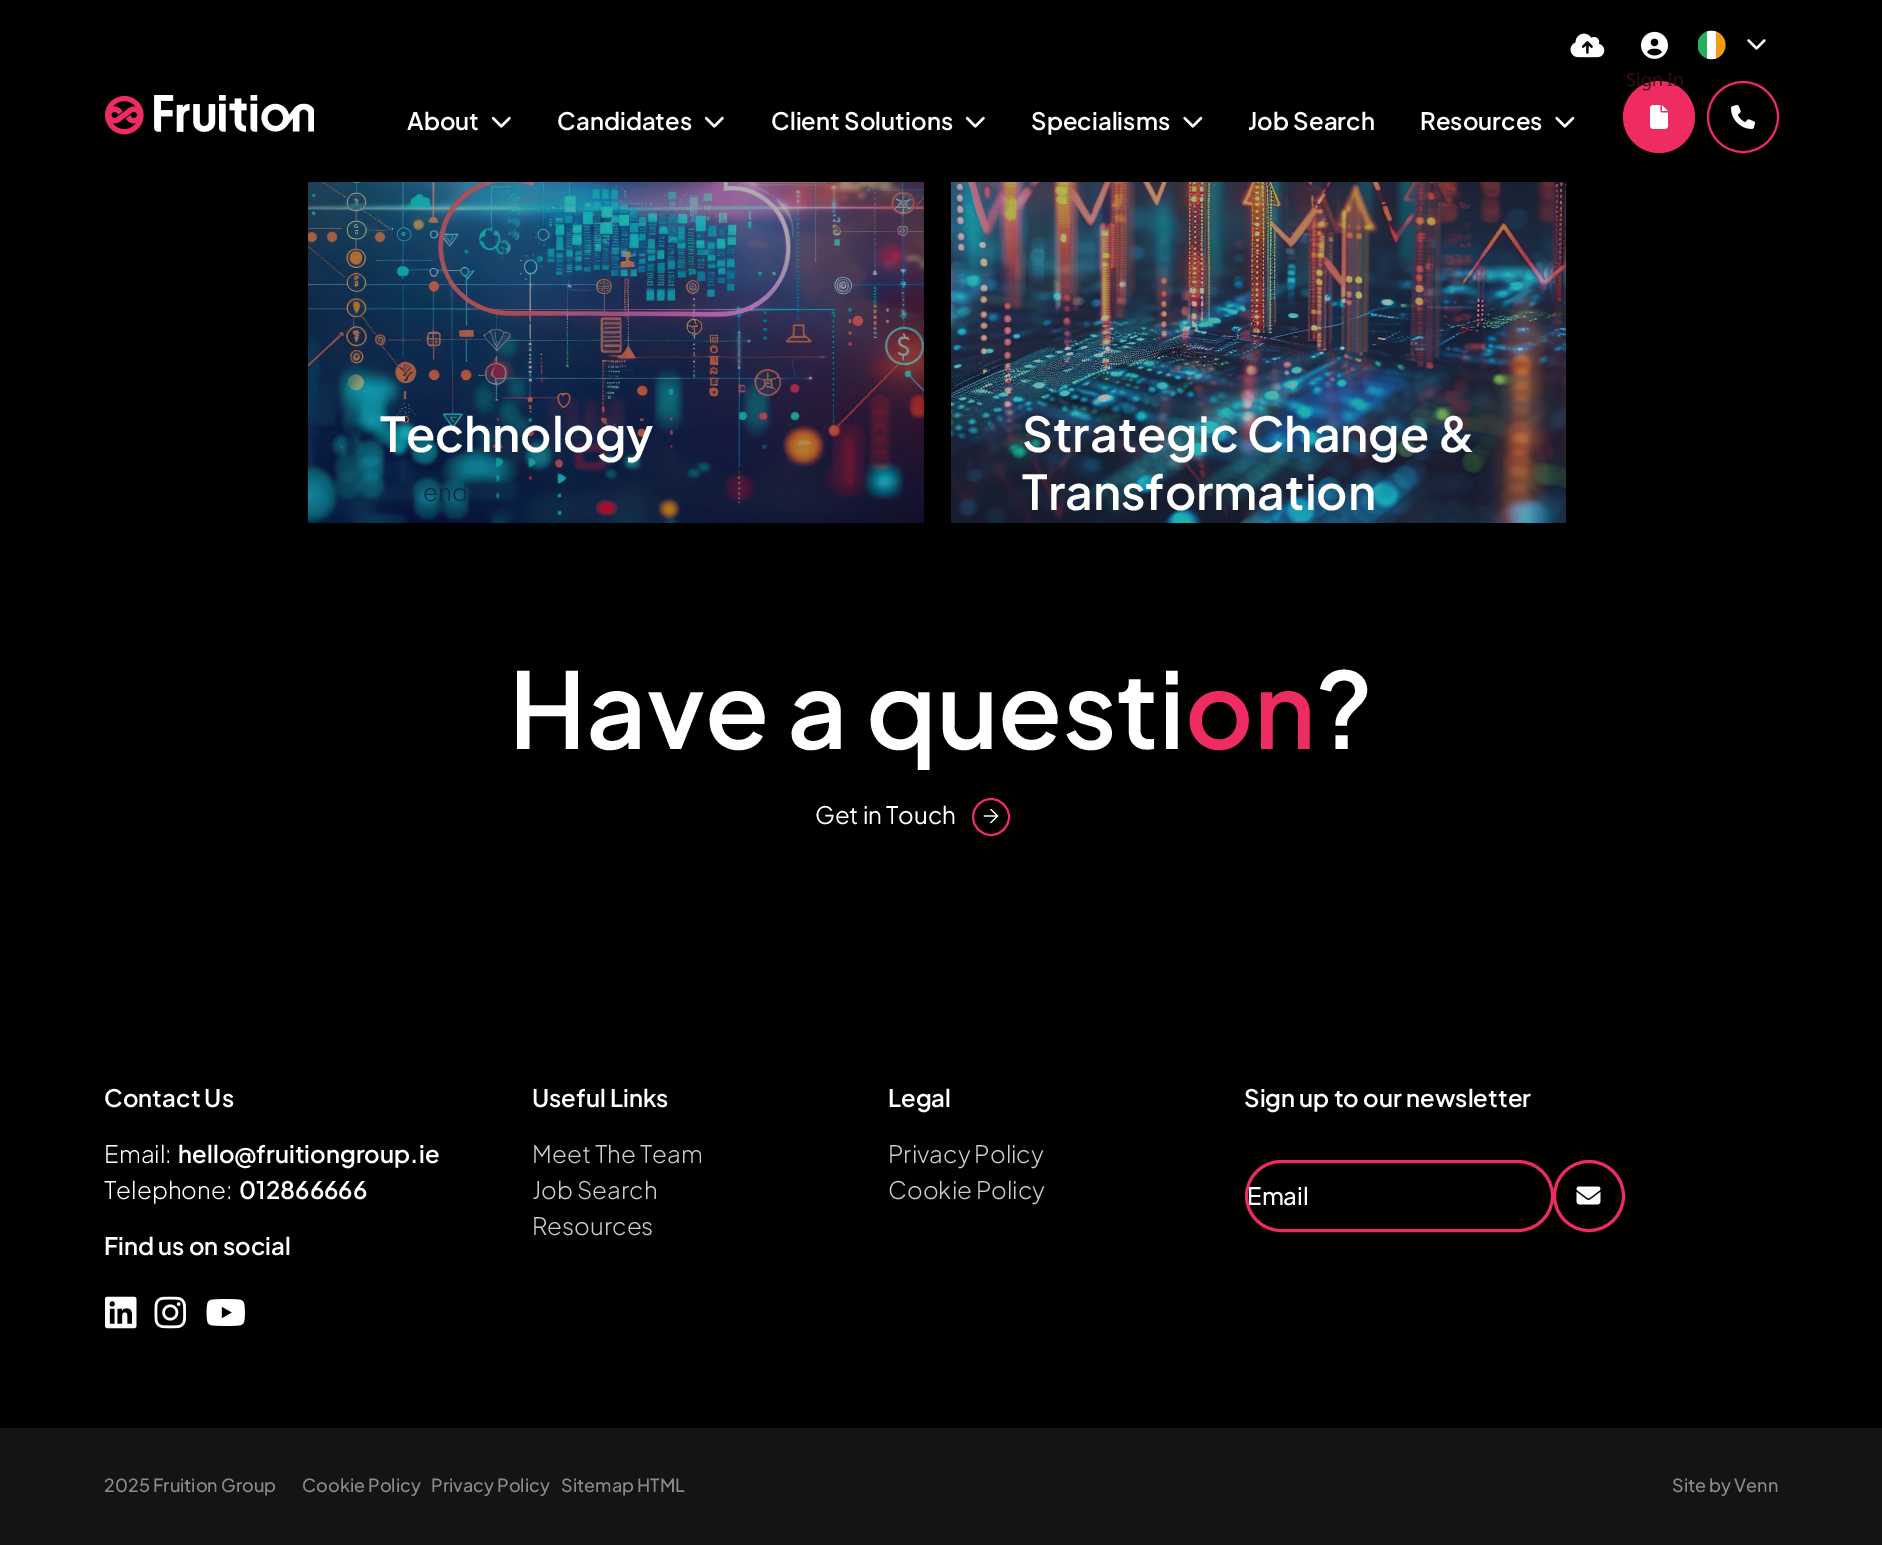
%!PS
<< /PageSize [1882 1545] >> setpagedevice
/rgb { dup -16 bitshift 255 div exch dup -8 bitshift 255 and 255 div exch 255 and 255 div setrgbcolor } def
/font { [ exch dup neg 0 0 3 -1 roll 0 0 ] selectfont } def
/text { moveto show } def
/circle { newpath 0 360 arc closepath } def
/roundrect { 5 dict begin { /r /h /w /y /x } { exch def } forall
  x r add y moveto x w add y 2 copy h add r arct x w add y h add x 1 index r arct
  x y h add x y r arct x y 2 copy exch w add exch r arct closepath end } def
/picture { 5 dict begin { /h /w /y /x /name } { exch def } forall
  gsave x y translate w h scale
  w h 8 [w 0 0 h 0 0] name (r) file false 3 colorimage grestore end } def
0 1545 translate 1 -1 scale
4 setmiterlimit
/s1 { /NotoSans-Regular 18 font 16#3B0B18 rgb } def
/s2 { /PlusJakartaSans-SemiBold 24 font 16#FFFFFF rgb } def
/s3 { /PlusJakartaSans-SemiBold 48 font 16#FFFFFF rgb } def
/s4 { /PlusJakartaSans-Light 24 font 16#142745 rgb } def
/s5 { /PlusJakartaSans-SemiBold 105 font 16#FFFFFF rgb } def
/s6 { /PlusJakartaSans-SemiBold 105 font 16#EE2C61 rgb } def
/s7 { /PlusJakartaSans-Regular 24 font 16#FFFFFF rgb } def
/s8 { /PlusJakartaSans-Light 24 font 16#FFFFFF rgb } def
/s9 { /PlusJakartaSans-Light 24 font 16#CCCCCC rgb } def
/s10 { /PlusJakartaSans-Medium 24 font 16#FFFFFF rgb } def
/s11 { /PlusJakartaSans-Medium 18 font 16#898A8A rgb } def
16#000000 rgb
0 0 1882 1545 rectfill
(pic1.raw) 105 95 209 40 picture
(pic2.raw) 1570 33 35 25 picture
16#F39C12 rgb
1725.5 45 moveto 1725.5 39 1721.5 33.5 1716 31.5 curveto 1716 58.5 lineto 1721.5 56.5 1725.5 51 1725.5 45 curveto closepath fill
16#FFFFFF rgb
1716 31.5 moveto 1716 58.5 lineto 1713 59.5 1710 59.5 1707 58.5 curveto 1707 31.5 lineto 1710 30.5 1713 30.5 1716 31.5 curveto closepath fill
16#27AE60 rgb
1707 31.5 moveto 1707 58.5 lineto 1702.5 57 1699.5 53.5 1698 49 curveto 1698 41 lineto 1699.5 36.5 1702.5 33 1707 31.5 curveto closepath fill
(pic3.raw) 1747 39 19 11 picture
(pic4.raw) 1641 31 27 28 picture
16#EE2C61 rgb
1659 117 36 circle fill
s1
(Sign In) 1626 86 text
s2
(About) 407 130 text
(pic5.raw) 491 116 20 12 picture
(Candidates) 557 130 text
(pic5.raw) 704 116 20 12 picture
(Client Solutions) 771 130 text
(pic5.raw) 965 116 20 12 picture
(Specialisms) 1031 130 text
(pic6.raw) 1183 116 20 12 picture
(Job Search) 1248 130 text
(Resources) 1420 130 text
(pic6.raw) 1555 116 20 12 picture
(pic7.raw) 1650 105 18 24 picture
16#EE2C61 rgb
2 setlinewidth
1743 117 35 circle stroke
(pic8.raw) 1731 105 24 24 picture
(pic9.raw) 308 182 616 341 picture
s3
(Technology) 380 452 text
s4
(end) 423 501 text
(pic10.raw) 951 182 615 341 picture
s3
(Strategic Change &) 1022 452 text
(Transformation) 1022 510 text
s5
(Have a questi) 509 749 text
s6
(on) 1185 749 text
s5
(?) 1315 749 text
s7
(Get in Touch) 815 824 text
16#EE2C61 rgb
991 817 18 circle stroke
(pic11.raw) 983 809 16 15 picture
s2
(Contact Us) 104 1107 text
s8
(Email:) 104 1163 text
s2
(hello@fruitiongroup.ie) 178 1163 text
s8
(Telephone:) 104 1199 text
s2
(012866666) 239 1199 text
(Find us on social) 104 1255 text
(pic12.raw) 105 1296 32 33 picture
(pic13.raw) 154 1296 32 33 picture
(pic14.raw) 206 1299 39 27 picture
(Useful Links) 532 1107 text
s9
(Meet The Team) 532 1163 text
(Job Search) 532 1199 text
(Resources) 532 1235 text
s2
(Legal) 888 1107 text
s9
(Privacy Policy) 888 1163 text
(Cookie Policy) 888 1199 text
s2
(Sign up to our newsletter) 1244 1107 text
16#EE2C61 rgb
3 setlinewidth
1246.5 1161.5 306 69 34.5 roundrect stroke
s10
(Email) 1247 1205 text
16#EE2C61 rgb
1589 1196 34.5 circle stroke
(pic15.raw) 1576 1186 25 19 picture
16#131415 rgb
0 1428 1882 117 rectfill
s11
(2025 Fruition Group) 104 1492 text
(Cookie Policy) 302 1492 text
(Privacy Policy) 431 1492 text
(Sitemap HTML) 561 1492 text
(Site by Venn) 1672 1492 text
showpage
